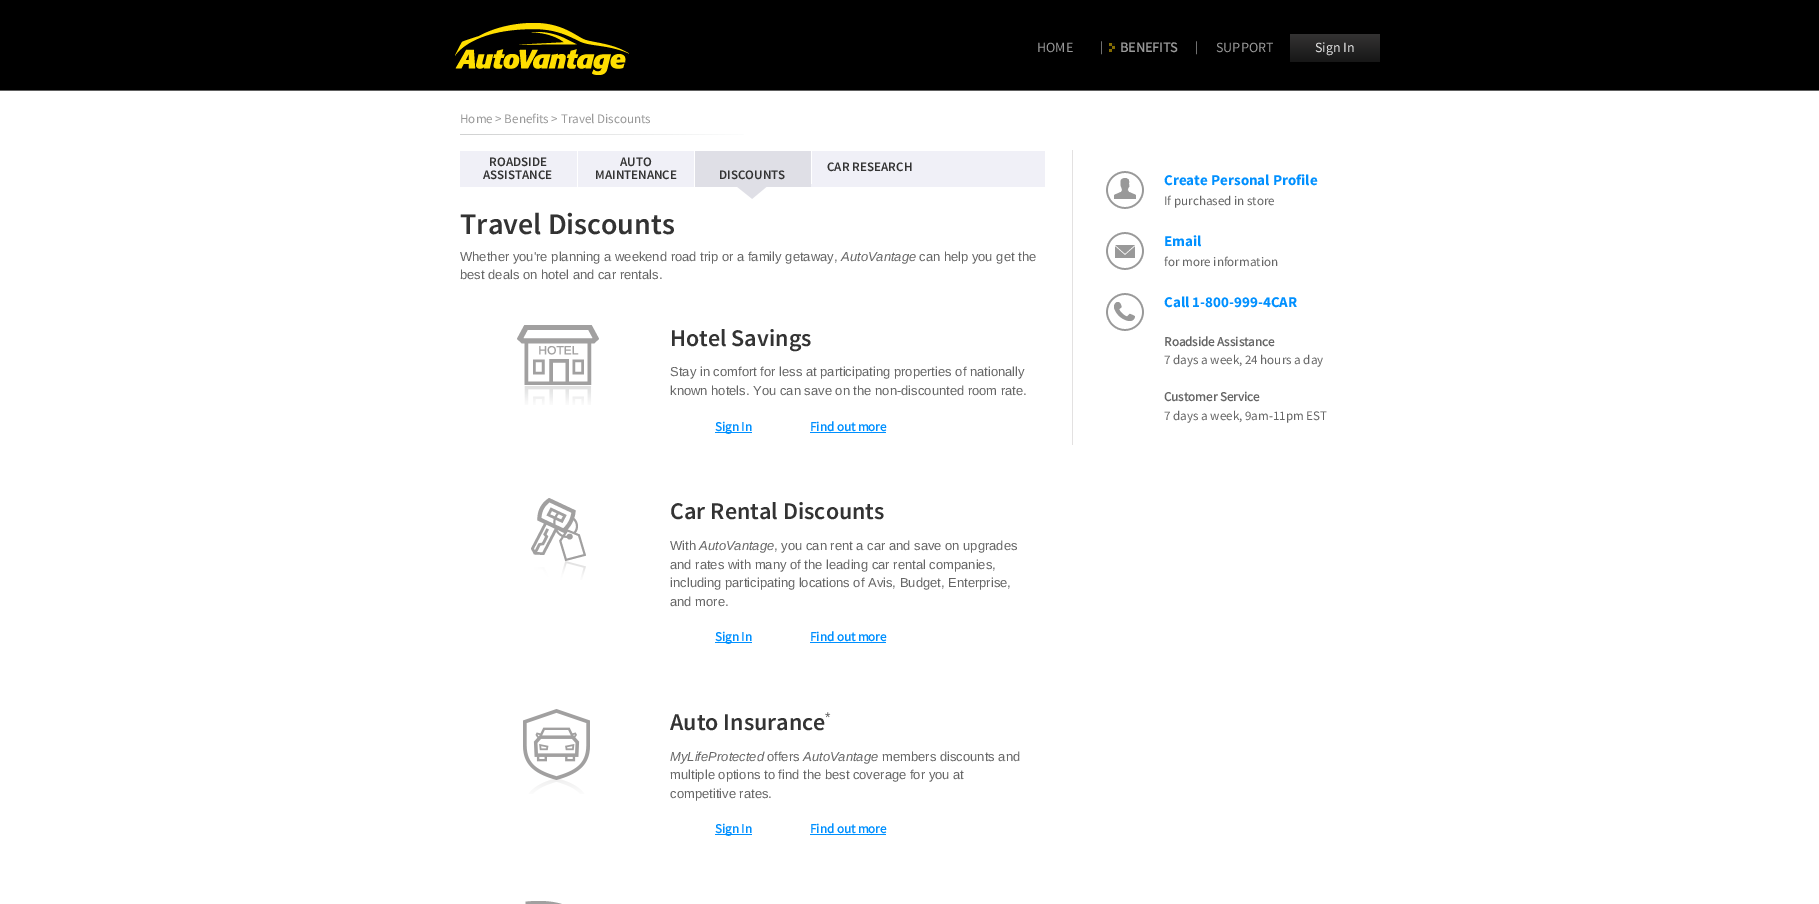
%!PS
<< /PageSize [1819 904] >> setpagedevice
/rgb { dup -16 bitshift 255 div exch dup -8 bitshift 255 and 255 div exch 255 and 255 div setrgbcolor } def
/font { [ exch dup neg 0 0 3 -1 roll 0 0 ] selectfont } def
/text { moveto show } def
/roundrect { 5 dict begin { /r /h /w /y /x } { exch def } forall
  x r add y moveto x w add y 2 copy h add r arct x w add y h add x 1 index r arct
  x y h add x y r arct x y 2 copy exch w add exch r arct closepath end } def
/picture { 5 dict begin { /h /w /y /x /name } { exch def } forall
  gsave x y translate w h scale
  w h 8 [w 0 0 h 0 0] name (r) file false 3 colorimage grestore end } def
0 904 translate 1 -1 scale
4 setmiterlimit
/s1 { /SourceSansPro-Regular 14 font 16#999999 rgb } def
/s2 { /SourceSansPro-Regular 13 font 16#999999 rgb } def
/s3 { /SourceSansPro-Bold 14 font 16#999999 rgb } def
/s4 { /SourceSansPro-Regular 14 font 16#E6E6E6 rgb } def
/s5 { /SourceSansPro-SemiBold 13 font 16#333333 rgb } def
/s6 { /SourceSansPro-SemiBold 30 font 16#333333 rgb } def
/s7 { /LiberationSans-Regular 13 font 16#666666 rgb } def
/s8 { /LiberationSans-Italic 13 font 16#666666 rgb } def
/s9 { /SourceSansPro-SemiBold 24 font 16#333333 rgb } def
/s10 { /SourceSansPro-Bold 13 font 16#0090FF rgb } def
/s11 { /LiberationSans-Regular 14 font 16#666666 rgb } def
/s12 { /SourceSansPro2-Bold 15 font 16#0090FF rgb } def
/s13 { /SourceSansPro-Regular 13 font 16#666666 rgb } def
/s14 { /SourceSansPro-Bold 13 font 16#666666 rgb } def
16#FFFFFF rgb
0 0 1819 904 rectfill
16#000000 rgb
0 0 1819 90 rectfill
16#606060 rgb
0 90 1819 1 rectfill
(pic1.raw) 455 23 174 52 picture
s1
(HOME) 1037 52 text
s2
(|) 1100 51 text
(pic2.raw) 1109 43 6 9 picture
s3
(BENEFITS) 1120 52 text
s2
(|) 1195 51 text
s1
(SUPPORT) 1216 52 text
gsave 1290 34 90 28 3 roundrect clip newpath
<< /ShadingType 2 /ColorSpace /DeviceRGB /Coords [1335 34 1335 62] /Extend [true true] /Function << /FunctionType 2 /Domain [0 1] /C0 [0.204 0.2 0.2] /C1 [0.09 0.09 0.09] /N 1 >> >> shfill grestore
s4
(Sign In) 1315 52 text
s2
(Home > Benefits > Travel Discounts) 460 123 text
gsave 460 134 moveto 744 134 lineto 744 135 lineto 460 135 lineto closepath clip newpath
<< /ShadingType 2 /ColorSpace /DeviceRGB /Coords [460 135 760 135] /Extend [true true] /Function << /FunctionType 2 /Domain [0 1] /C0 [0.816 0.82 0.82] /C1 [1 1 1] /N 1 >> >> shfill grestore
16#F0F0F7 rgb
460 151 585 36 rectfill
s5
(ROADSIDE) 489 166 text
(ASSISTANCE) 483 179 text
16#FFFFFF rgb
577 151 1 36 rectfill
s5
(AUTO) 620 166 text
(MAINTENANCE) 595 179 text
16#FFFFFF rgb
811 151 1 33 rectfill
s5
(CAR RESEARCH) 827 171 text
(pic3.raw) 695 151 116 48 picture
16#FFFFFF rgb
694 151 1 36 rectfill
s5
(DISCOUNTS) 719 179 text
s6
(Travel Discounts) 460 234 text
s7
(Whether you're planning a weekend road trip or a family getaway,) 460 261 text
s8
(AutoVantage) 841 261 text
s7
(can help you get the) 919 261 text
(best deals on hotel and car rentals.) 460 279 text
(pic4.raw) 517 325 82 80 picture
s9
(Hotel Savings) 670 346 text
s7
(Stay in comfort for less at participating properties of nationally) 670 376 text
(known hotels. You can save on the non-discounted room rate.) 670 395 text
16#0090FF rgb
715 432 37 1 rectfill
s10
(Sign In) 715 431 text
(Find out more) 810 431 text
810 432 76 1 rectfill
(pic5.raw) 531 498 55 82 picture
s9
(Car Rental Discounts) 670 519 text
s7
(With) 670 550 text
s8
(AutoVantage) 699 550 text
s7
(, you can rent a car and save on upgrades) 774 550 text
(and rates with many of the leading car rental companies,) 670 569 text
(including participating locations of Avis, Budget, Enterprise,) 670 587 text
(and more.) 670 606 text
16#0090FF rgb
715 642 37 1 rectfill
s10
(Sign In) 715 641 text
(Find out more) 810 641 text
810 642 76 1 rectfill
(pic6.raw) 523 709 67 85 picture
s9
(Auto Insurance) 670 730 text
s11
(*) 825 722 text
s8
(MyLifeProtected) 670 761 text
s7
(offers) 767 761 text
s8
(AutoVantage) 803 761 text
s7
(members discounts and) 882 761 text
(multiple options to find the best coverage for you at) 670 779 text
(competitive rates.) 670 798 text
16#0090FF rgb
715 834 37 1 rectfill
s10
(Sign In) 715 833 text
(Find out more) 810 833 text
810 834 76 1 rectfill
(pic7.raw) 525 901 37 3 picture
16#E3E1E1 rgb
1072 150 1 295 rectfill
(pic8.raw) 1106 171 38 38 picture
s12
(Create Personal Profile) 1164 185 text
s13
(If purchased in store) 1164 205 text
(pic9.raw) 1106 232 38 38 picture
s12
(Email) 1164 246 text
s13
(for more information) 1164 266 text
(pic10.raw) 1106 293 38 38 picture
s12
(Call 1-800-999-4CAR) 1164 307 text
s14
(Roadside Assistance) 1164 346 text
s13
(7 days a week, 24 hours a day) 1164 364 text
s14
(Customer Service) 1164 401 text
s13
(7 days a week, 9am-11pm EST) 1164 420 text
showpage
